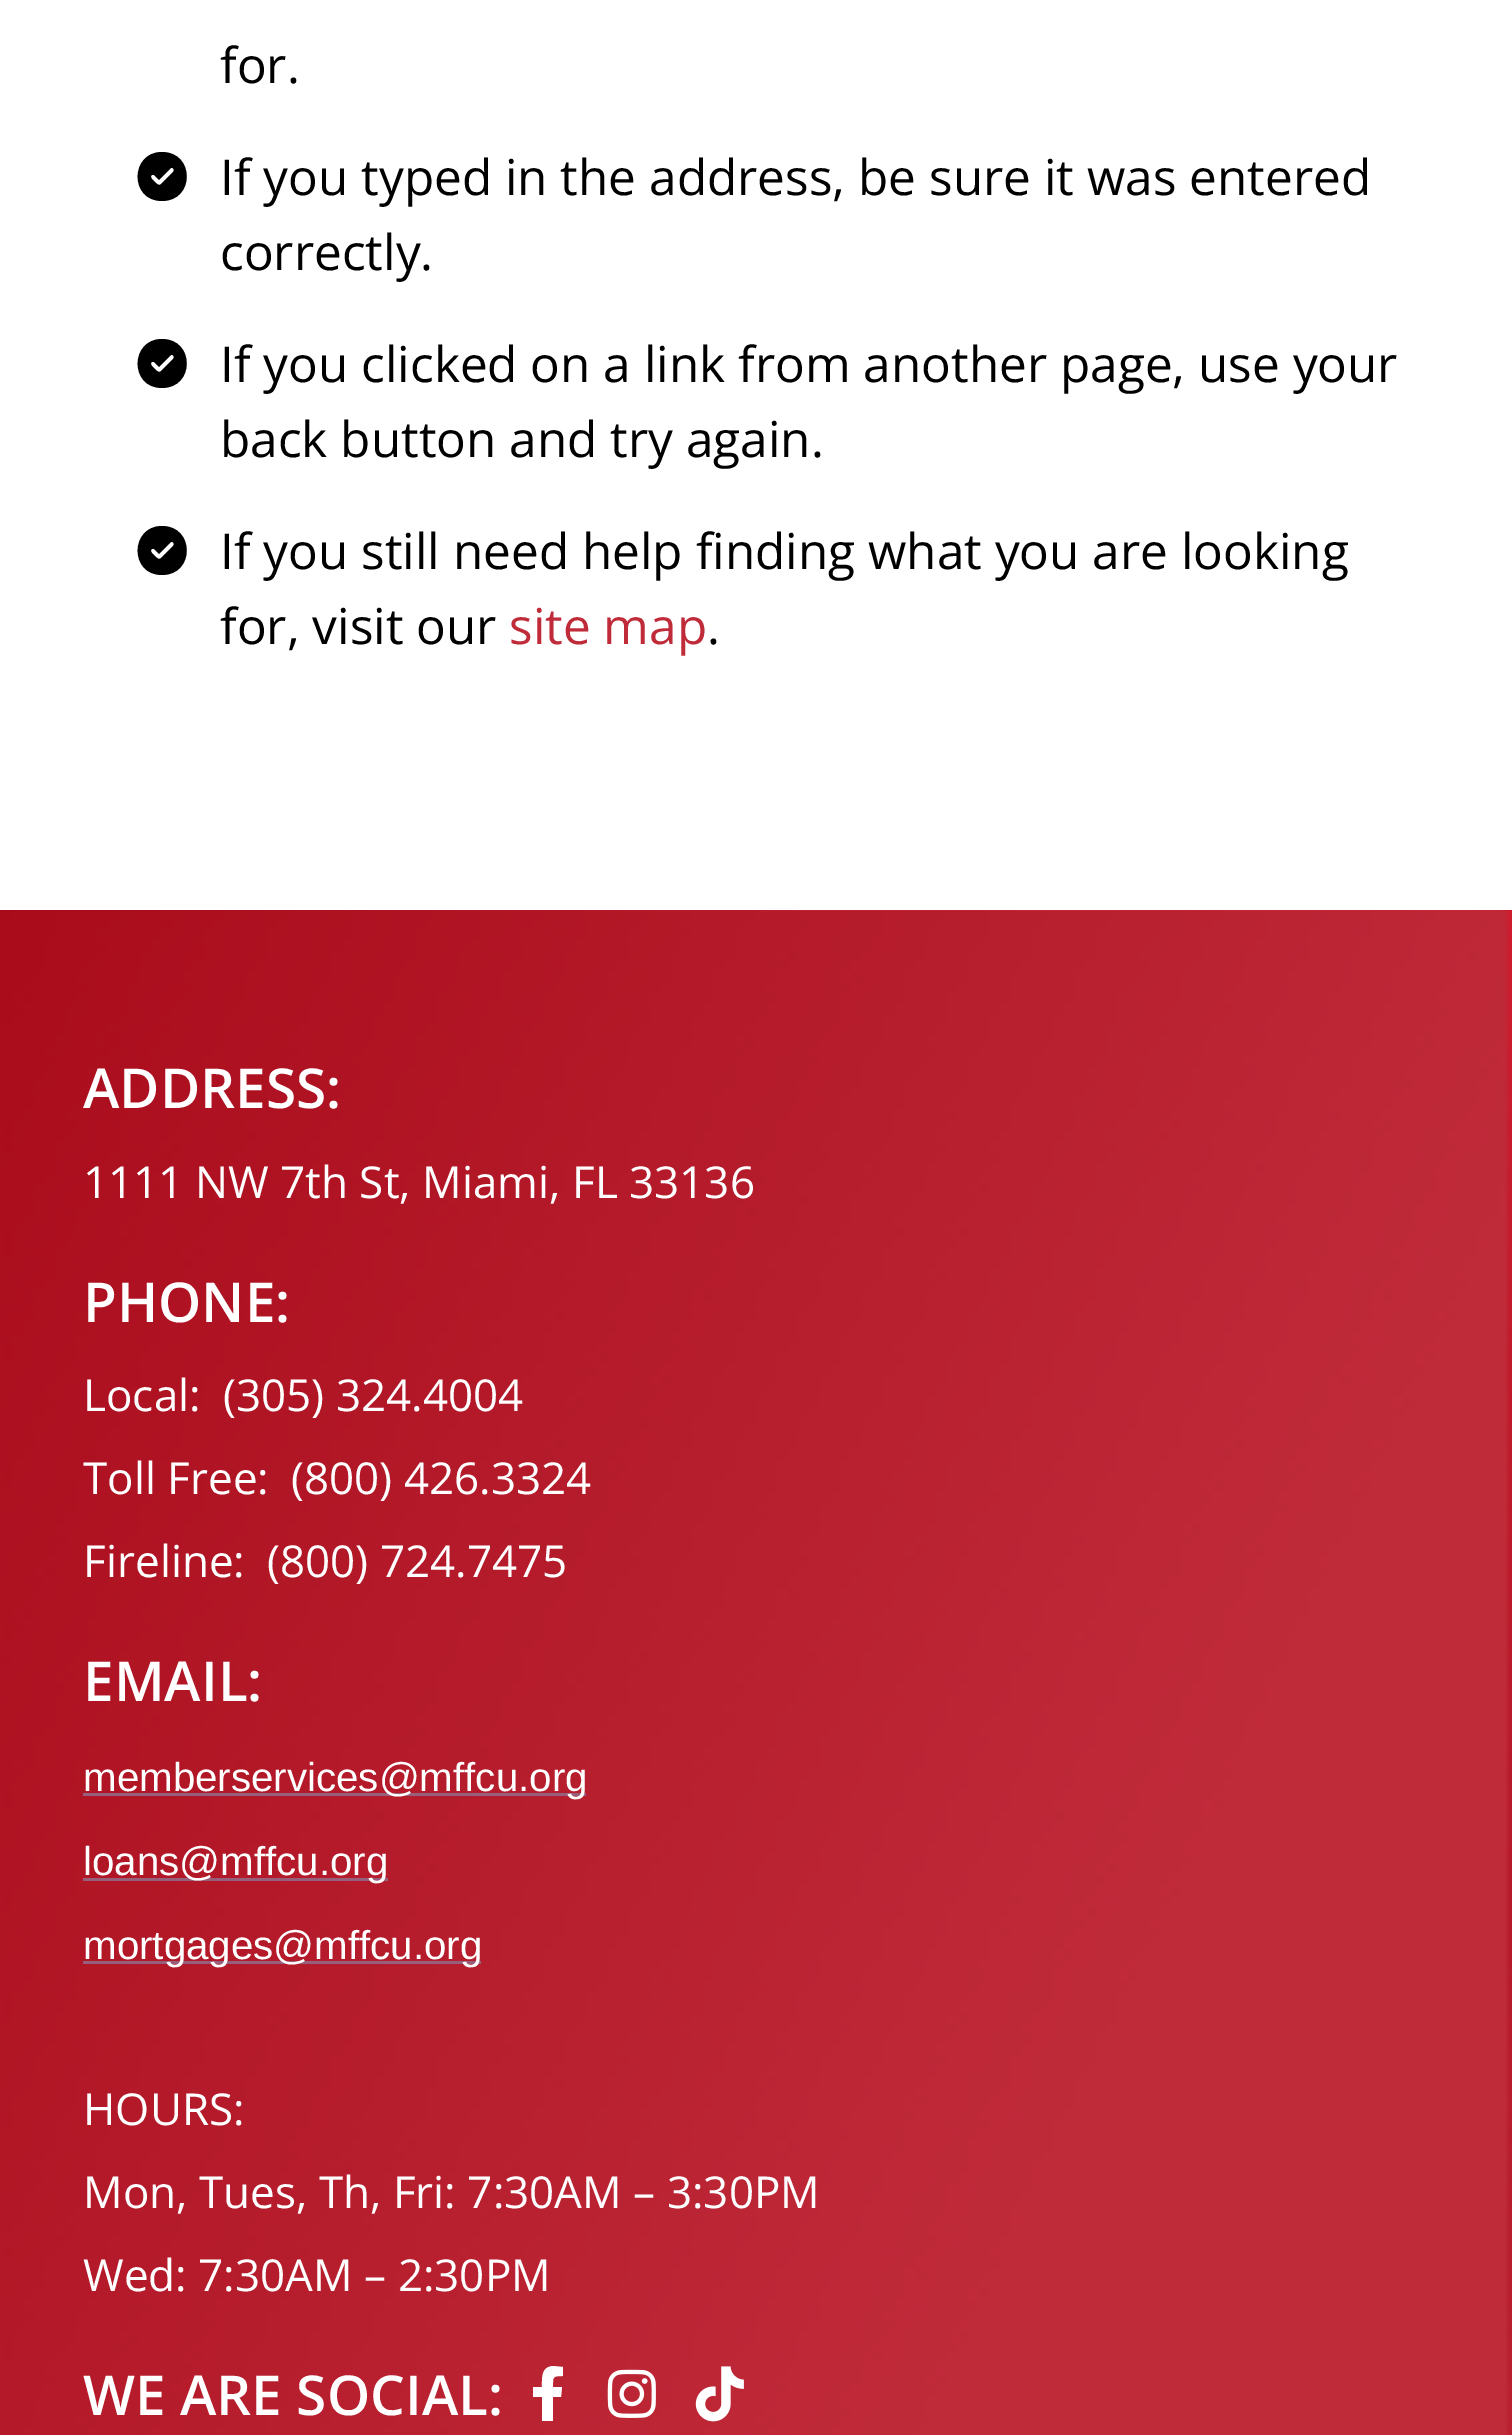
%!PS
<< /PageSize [1512 2435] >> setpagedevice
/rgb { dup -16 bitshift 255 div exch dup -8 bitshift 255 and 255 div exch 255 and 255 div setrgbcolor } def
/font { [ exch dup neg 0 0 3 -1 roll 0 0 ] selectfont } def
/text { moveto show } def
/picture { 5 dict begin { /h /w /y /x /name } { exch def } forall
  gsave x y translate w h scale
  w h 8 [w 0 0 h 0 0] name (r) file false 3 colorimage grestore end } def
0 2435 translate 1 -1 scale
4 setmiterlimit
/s1 { /OpenSans-Regular 49.5 font 16#000000 rgb } def
/s2 { /OpenSans-Regular 49.5 font 16#C02B3A rgb } def
/s3 { /OpenSans-SemiBold 55 font 16#FFFFFF rgb } def
/s4 { /OpenSans-Regular 44 font 16#FFFFFF rgb } def
/s5 { /LiberationSans-Regular 40.3 font 16#FFFFFF rgb } def
16#FFFFFF rgb
0 0 1512 2435 rectfill
s1
(for.) 220 83 text
162 201 moveto 195 201 195 152 162 152 curveto 130 152 129 201 162 201 curveto closepath 173 172 moveto 163 182 lineto 159 187 158 185 154 181 curveto 153 180 149 177 152 175 curveto 154 175 lineto 159 180 lineto 171 168 lineto 173 167 175 170 173 172 curveto closepath fill
(If you typed in the address, be sure it was entered) 220 195 text
(correctly.) 220 270 text
162 388 moveto 195 388 195 339 162 339 curveto 130 339 129 388 162 388 curveto closepath 173 359 moveto 163 369 lineto 159 374 158 372 154 368 curveto 153 367 149 364 152 362 curveto 154 362 lineto 159 367 lineto 171 355 lineto 173 354 175 357 173 359 curveto closepath fill
(If you clicked on a link from another page, use your) 220 382 text
(back button and try again.) 220 457 text
162 575 moveto 195 575 195 526 162 526 curveto 130 526 129 575 162 575 curveto closepath 173 546 moveto 163 556 lineto 159 561 158 559 154 555 curveto 153 554 149 551 152 549 curveto 154 549 lineto 159 554 lineto 171 542 lineto 173 541 175 544 173 546 curveto closepath fill
(If you still need help finding what you are looking) 220 569 text
(for, visit our) 220 644 text
s2
(site map) 509 644 text
s1
(.) 707 644 text
gsave 0 910 moveto 1512 910 lineto 1512 2435 lineto 0 2435 lineto closepath clip newpath
<< /ShadingType 2 /ColorSpace /DeviceRGB /Coords [-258 2238 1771 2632] /Extend [true true] /Function << /FunctionType 3 /Domain [0 1] /Functions [<< /FunctionType 2 /Domain [0 1] /C0 [0.635 0 0.063] /C1 [0.635 0 0.063] /N 1 >> << /FunctionType 2 /Domain [0 1] /C0 [0.635 0 0.063] /C1 [0.863 0.208 0.271] /N 1 >> << /FunctionType 2 /Domain [0 1] /C0 [0.863 0.208 0.271] /C1 [0.902 0.102 0.184] /N 1 >> << /FunctionType 2 /Domain [0 1] /C0 [0.902 0.102 0.184] /C1 [0.635 0 0.063] /N 1 >> << /FunctionType 2 /Domain [0 1] /C0 [0.635 0 0.063] /C1 [0.635 0 0.063] /N 1 >>] /Bounds [0.06 0.43 0.69 0.81] /Encode [0 1 0 1 0 1 0 1 0 1] >> >> shfill grestore
(pic1.raw) 0 910 1512 1525 picture
s3
(ADDRESS:) 83 1108 text
s4
(1111 NW 7th St, Miami, FL 33136) 83 1198 text
s3
(PHONE:) 83 1322 text
s4
(Local:) 83 1411 text
(\(305\) 324.4004) 223 1411 text
(Toll Free:) 83 1494 text
(\(800\) 426.3324) 291 1494 text
(Fireline:) 83 1577 text
(\(800\) 724.7475) 267 1577 text
s3
(EMAIL:) 83 1701 text
16#96607D rgb
83 1793 503 3 rectfill
s5
(memberservices@mffcu.org) 83 1791 text
16#96607D rgb
83 1878 305 3 rectfill
s5
(loans@mffcu.org) 83 1875 text
16#96607D rgb
83 1961 398 3 rectfill
s5
(mortgages@mffcu.org) 83 1959 text
s4
(HOURS:) 83 2125 text
(Mon, Tues, Th, Fri: 7:30AM – 3:30PM) 83 2208 text
(Wed: 7:30AM – 2:30PM) 83 2291 text
s3
(WE ARE SOCIAL:) 83 2415 text
561 2397 moveto 562 2387 lineto 553 2387 lineto 553 2377 552 2376 563 2376 curveto 563 2367 lineto 553 2366 lineto 541 2367 542 2378 542 2387 curveto 533 2387 lineto 533 2397 lineto 542 2397 lineto 542 2421 lineto 553 2421 lineto 553 2397 lineto closepath fill
(pic2.raw) 607 2369 49 49 picture
(pic3.raw) 695 2366 49 56 picture
showpage
